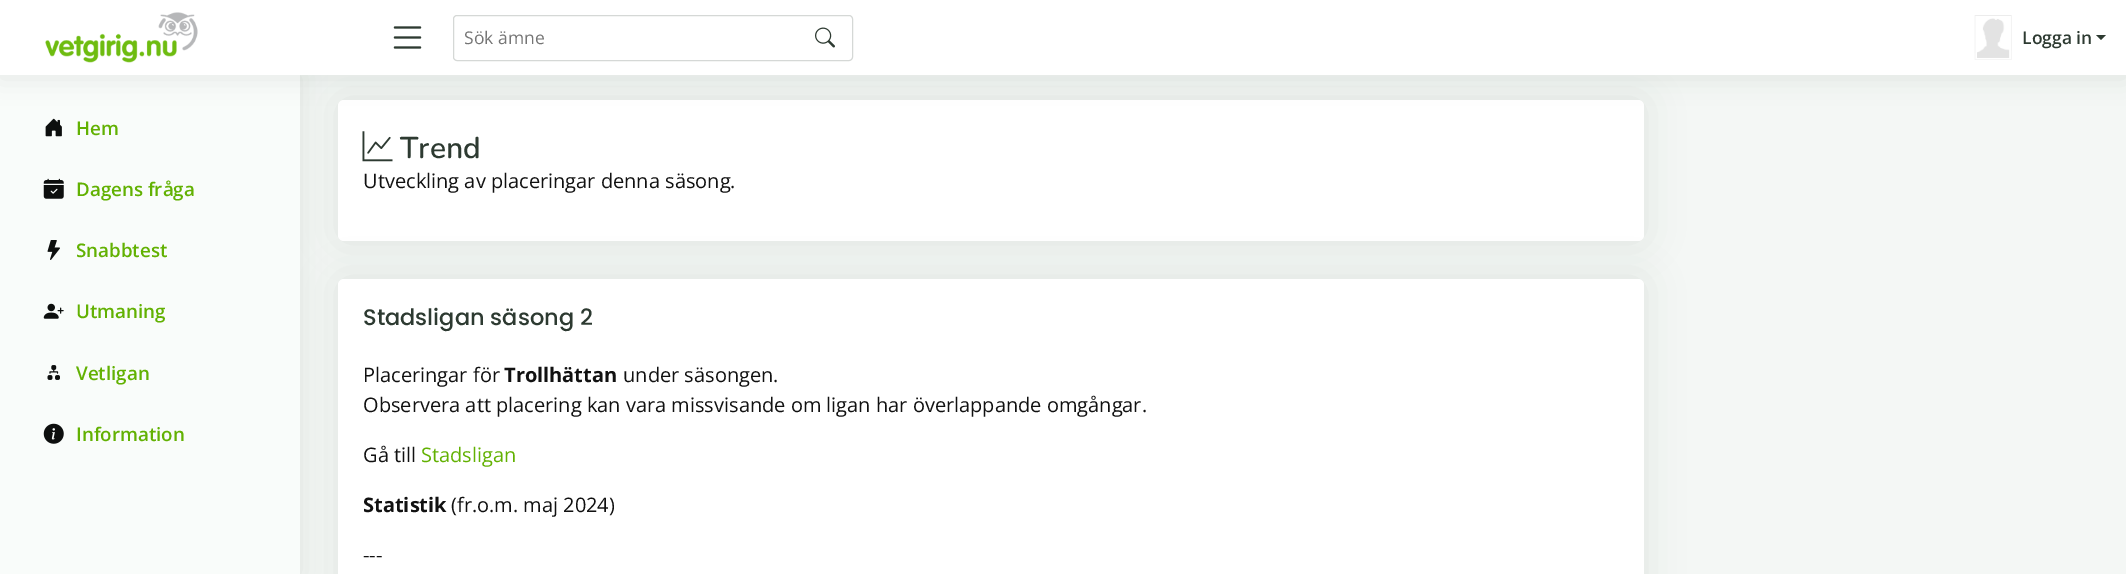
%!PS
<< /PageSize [2126 574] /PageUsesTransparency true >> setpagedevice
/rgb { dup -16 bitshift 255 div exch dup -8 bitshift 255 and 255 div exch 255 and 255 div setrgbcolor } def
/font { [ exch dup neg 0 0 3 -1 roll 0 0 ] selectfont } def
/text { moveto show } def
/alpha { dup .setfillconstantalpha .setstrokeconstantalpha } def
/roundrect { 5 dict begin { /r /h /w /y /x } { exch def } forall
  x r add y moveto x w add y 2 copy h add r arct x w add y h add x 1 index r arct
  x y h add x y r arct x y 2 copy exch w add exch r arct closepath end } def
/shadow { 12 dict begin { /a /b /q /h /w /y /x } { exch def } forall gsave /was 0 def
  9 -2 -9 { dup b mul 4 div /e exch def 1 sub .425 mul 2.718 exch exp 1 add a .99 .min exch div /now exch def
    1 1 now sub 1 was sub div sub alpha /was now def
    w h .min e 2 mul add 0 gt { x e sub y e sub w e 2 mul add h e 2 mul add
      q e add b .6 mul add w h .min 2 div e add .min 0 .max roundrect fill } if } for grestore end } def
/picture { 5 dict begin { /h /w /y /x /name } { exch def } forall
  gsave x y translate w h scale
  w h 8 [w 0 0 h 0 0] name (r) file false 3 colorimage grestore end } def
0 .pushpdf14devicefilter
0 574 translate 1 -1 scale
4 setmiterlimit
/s1 { /OpenSans-Regular 17.5 font 16#757575 rgb } def
/s2 { /OpenSans-SemiBold 17.5 font 16#2D3A31 rgb } def
/s3 { /OpenSans-SemiBold 18.75 font 16#62B102 rgb } def
/s4 { /Nunito-SemiBold 30 font 16#2D3A31 rgb } def
/s5 { /OpenSans-Regular 20 font 16#111111 rgb } def
/s6 { /Poppins-Medium 22.5 font 16#2D3A31 rgb } def
/s7 { /OpenSans-Bold 20 font 16#111111 rgb } def
/s8 { /OpenSans-Regular 20 font 16#62B102 rgb } def
16#F4F7F5 rgb
0 0 2126 574 rectfill
16#2D3A31 rgb
338 100 1306 141 6 19 0.1 shadow
16#FFFFFF rgb
338 100 1306 141 6 roundrect fill
16#2D3A31 rgb
338 279 1306 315 6 19 0.1 shadow
16#FFFFFF rgb
338 279 1306 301 6 roundrect fill
16#2D3A31 rgb
0 75 300 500 0 12.5 0.1 shadow
16#F9FCFA rgb
0 75 300 499 rectfill
16#2D3A31 rgb
0 3 2126 75 0 12.5 0.1 shadow
16#FFFFFF rgb
0 0 2126 75 rectfill
(pic1.raw) 45 12 153 51 picture
(pic2.raw) 393 26 29 23 picture
16#D5D8D6 rgb
453.5 15.5 399 45 3.5 roundrect stroke
s1
(Sök ämne) 464 44 text
(pic3.raw) 815 27 20 21 picture
(pic4.raw) 1974 15 38 45 picture
s2
(Logga in) 2022 44 text
2096 35 moveto 2106 35 lineto 2101 40 lineto closepath fill
(pic5.raw) 45 118 17 19 picture
s3
(Hem) 76 135 text
(pic6.raw) 43 178 21 21 picture
(Dagens fråga) 76 196 text
(pic7.raw) 47 240 13 20 picture
(Snabbtest) 76 257 text
(pic8.raw) 43 303 21 16 picture
(Utmaning) 76 318 text
(pic9.raw) 47 365 13 15 picture
(Vetligan) 76 380 text
(pic10.raw) 43 423 21 21 picture
(Information) 76 441 text
(pic11.raw) 362 131 31 31 picture
s4
(Trend) 400 158 text
s5
(Utveckling av placeringar denna säsong.) 363 188 text
s6
(Stadsligan säsong 2) 363 325 text
s5
(Placeringar för) 363 382 text
s7
(Trollhättan) 504 382 text
s5
(under säsongen.) 623 382 text
(Observera att placering kan vara missvisande om ligan har överlappande omgångar.) 363 412 text
(Gå till) 363 462 text
s8
(Stadsligan) 421 462 text
s7
(Statistik) 363 512 text
s5
(\(fr.o.m. maj 2024\)) 451 512 text
(---) 363 562 text
.poppdf14devicefilter showpage
